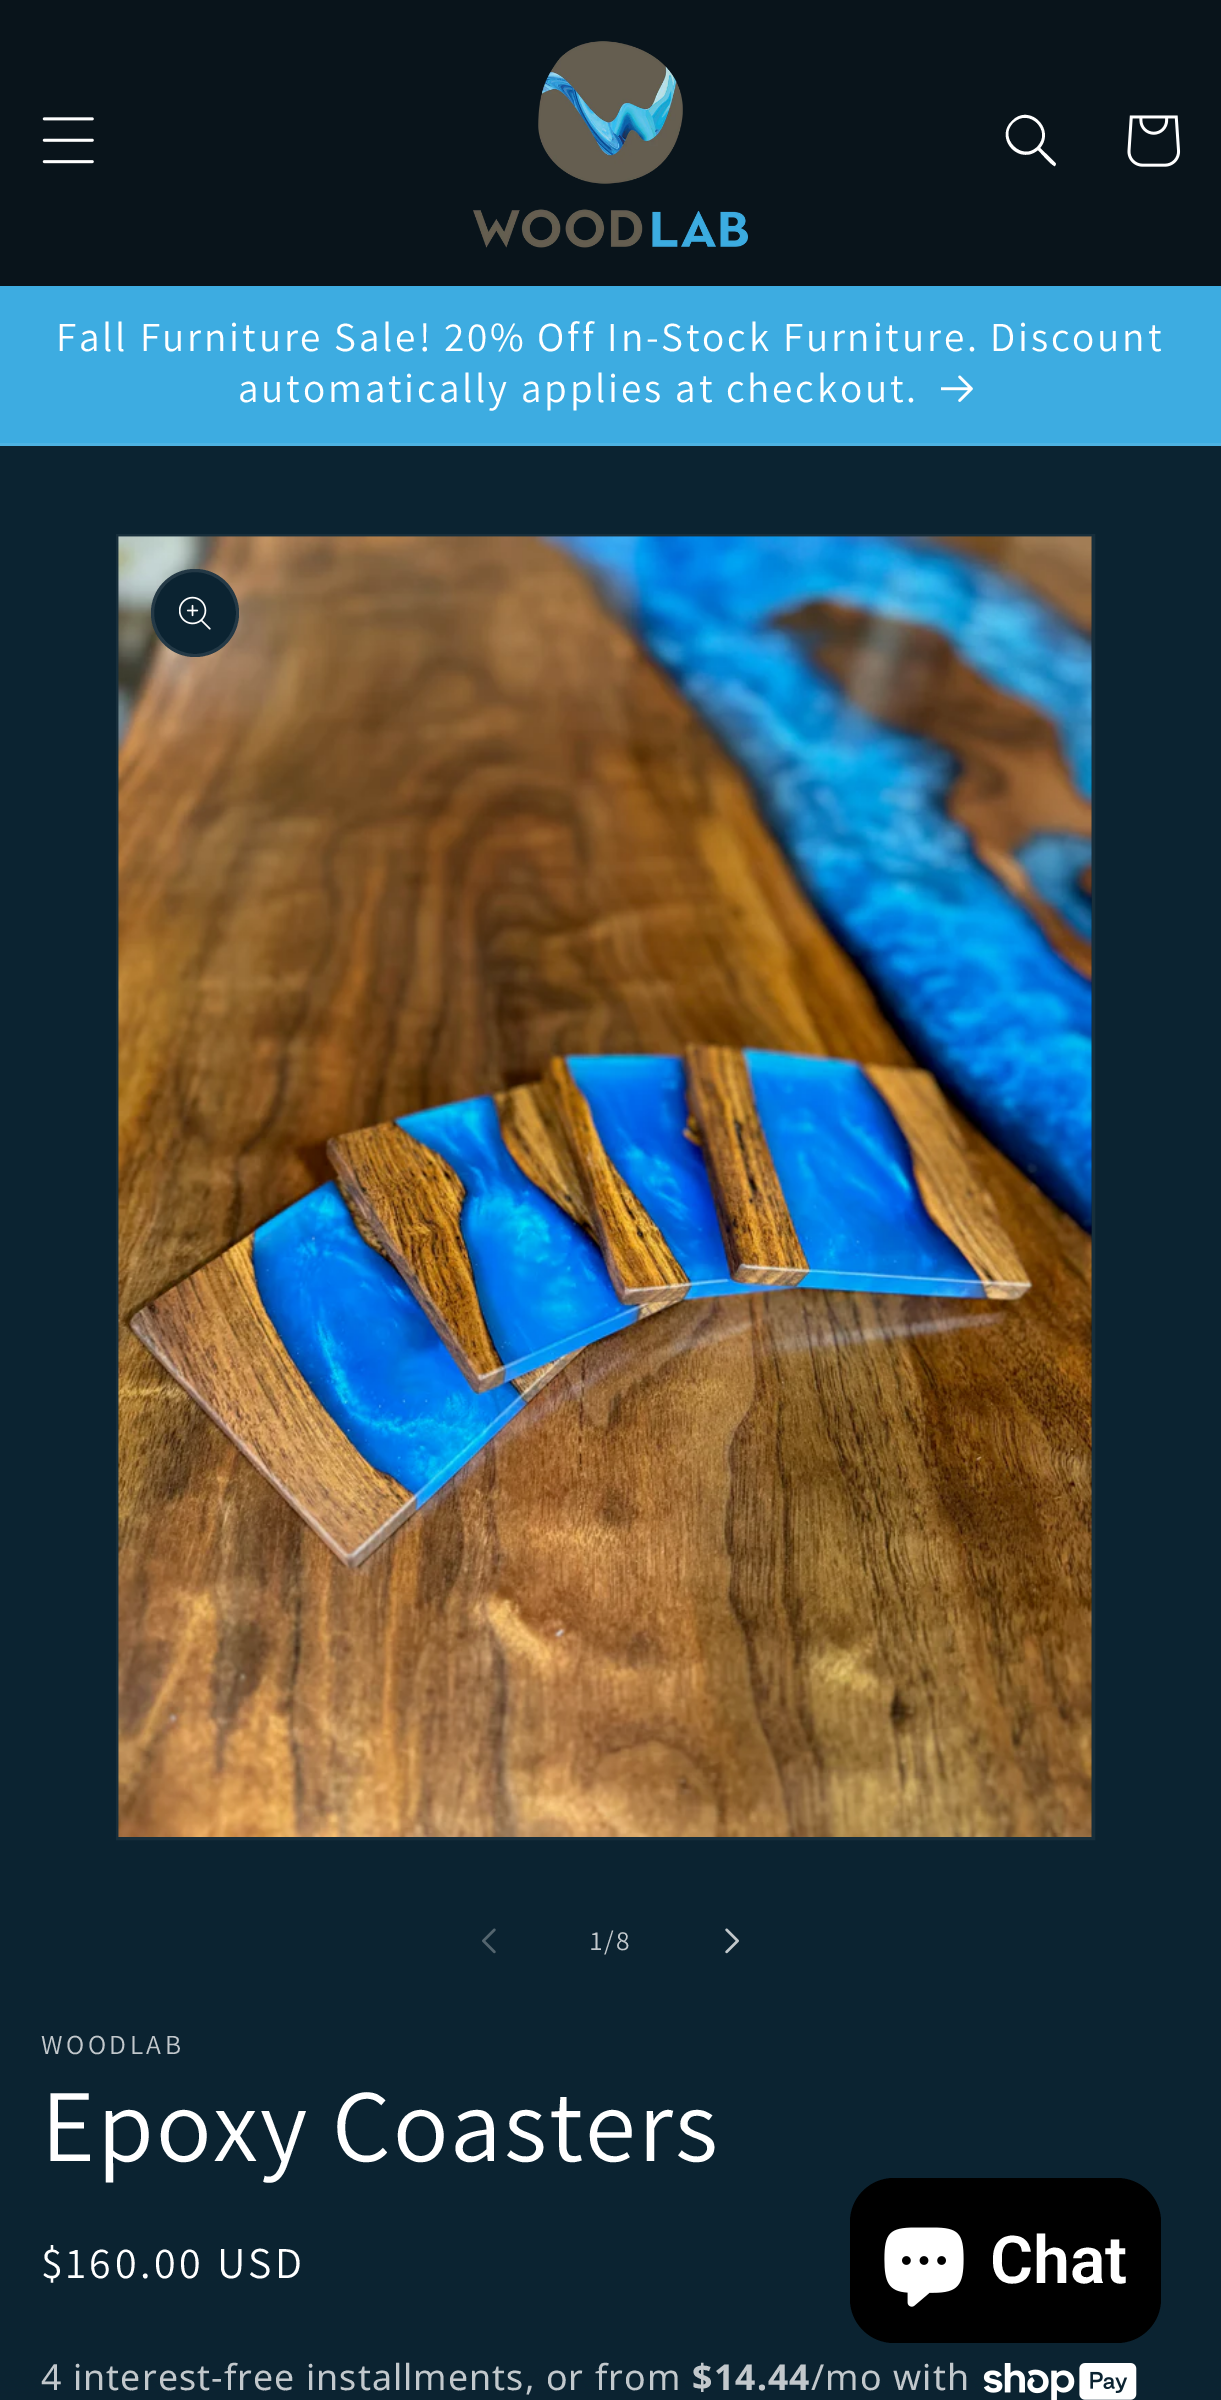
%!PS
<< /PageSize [1221 2400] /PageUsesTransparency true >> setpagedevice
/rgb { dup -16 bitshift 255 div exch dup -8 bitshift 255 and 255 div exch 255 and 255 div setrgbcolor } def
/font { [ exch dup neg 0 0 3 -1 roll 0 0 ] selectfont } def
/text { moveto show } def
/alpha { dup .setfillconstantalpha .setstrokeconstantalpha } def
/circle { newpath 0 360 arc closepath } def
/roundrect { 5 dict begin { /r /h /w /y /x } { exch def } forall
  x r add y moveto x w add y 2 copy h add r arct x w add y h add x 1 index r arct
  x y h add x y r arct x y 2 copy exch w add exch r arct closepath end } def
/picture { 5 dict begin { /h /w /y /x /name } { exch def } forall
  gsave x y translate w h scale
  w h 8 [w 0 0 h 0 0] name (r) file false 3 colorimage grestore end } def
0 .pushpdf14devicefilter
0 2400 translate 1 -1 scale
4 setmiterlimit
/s1 { /Roboto-SemiBold 66 font 16#FFFFFF rgb } def
16#0B2331 rgb
0 0 1221 2400 rectfill
16#09141B rgb
0 0 1221 286 rectfill
(pic1.raw) 42 117 52 47 picture
(pic2.raw) 473 41 275 207 picture
16#FFFFFF rgb
1037 147 moveto 1022 162 998 138 1013 123 curveto 1029 107 1053 131 1037 147 curveto closepath 1038 150 moveto 1019 166 994 138 1012 121 curveto 1029 103 1056 129 1040 148 curveto 1042 150 1056 163 1056 164 curveto 1055 166 lineto 1053 167 1040 152 1038 150 curveto closepath eofill
(pic3.raw) 1127 115 54 52 picture
16#3DACE1 rgb
0 286 1221 157 rectfill
16#4DB3E3 rgb
0 443 1221 3 rectfill
/Assistant-Regular 41.25 font
16#FFFFFF rgb
56 351 moveto 2.75 0 (Fall Furniture Sale! 20% Off In-Stock Furniture. Discount) ashow
238 402 moveto 2.75 0 (automatically applies at checkout.) ashow
(pic4.raw) 941 375 32 27 picture
16#172E3B rgb
3 setlinewidth
117.5 535.5 976 1303 rectstroke
(pic5.raw) 118 536 974 1301 picture
16#0B2331 rgb
195 613 44 circle fill
0.1 alpha
16#FFFFFF rgb
195 613 42.5 circle stroke
1 alpha
(pic6.raw) 179 596 32 34 picture
(pic7.raw) 482 1928 14 26 picture
/Assistant-Regular 27.5 font
16#C2C8CC rgb
590 1950 moveto 2 0 (1/8) ashow
(pic8.raw) 725 1928 14 26 picture
41 2054 moveto 3.5 0 (WOODLAB) ashow
/Assistant-Regular 103 font
16#FFFFFF rgb
41 2161 moveto 2 0 (Epoxy Coasters) ashow
/Assistant-Regular 44 font
41 2278 moveto 3.5 0 ($160.00 USD) ashow
/NotoSans-Regular 35.75 font
16#C2C8CC rgb
41 2390 moveto 1.1 0 (4 interest-free installments, or from) ashow
/NotoSans-Bold 35.75 font
692 2390 moveto 1.1 0 ($14.44) ashow
/NotoSans-Regular 35.75 font
811 2390 moveto 1.1 0 (/mo with) ashow
(pic9.raw) 983 2363 154 37 picture
16#000000 rgb
850 2178 311 165 44 roundrect fill
(pic10.raw) 884 2227 80 80 picture
s1
(Chat) 990 2283 text
.poppdf14devicefilter showpage
